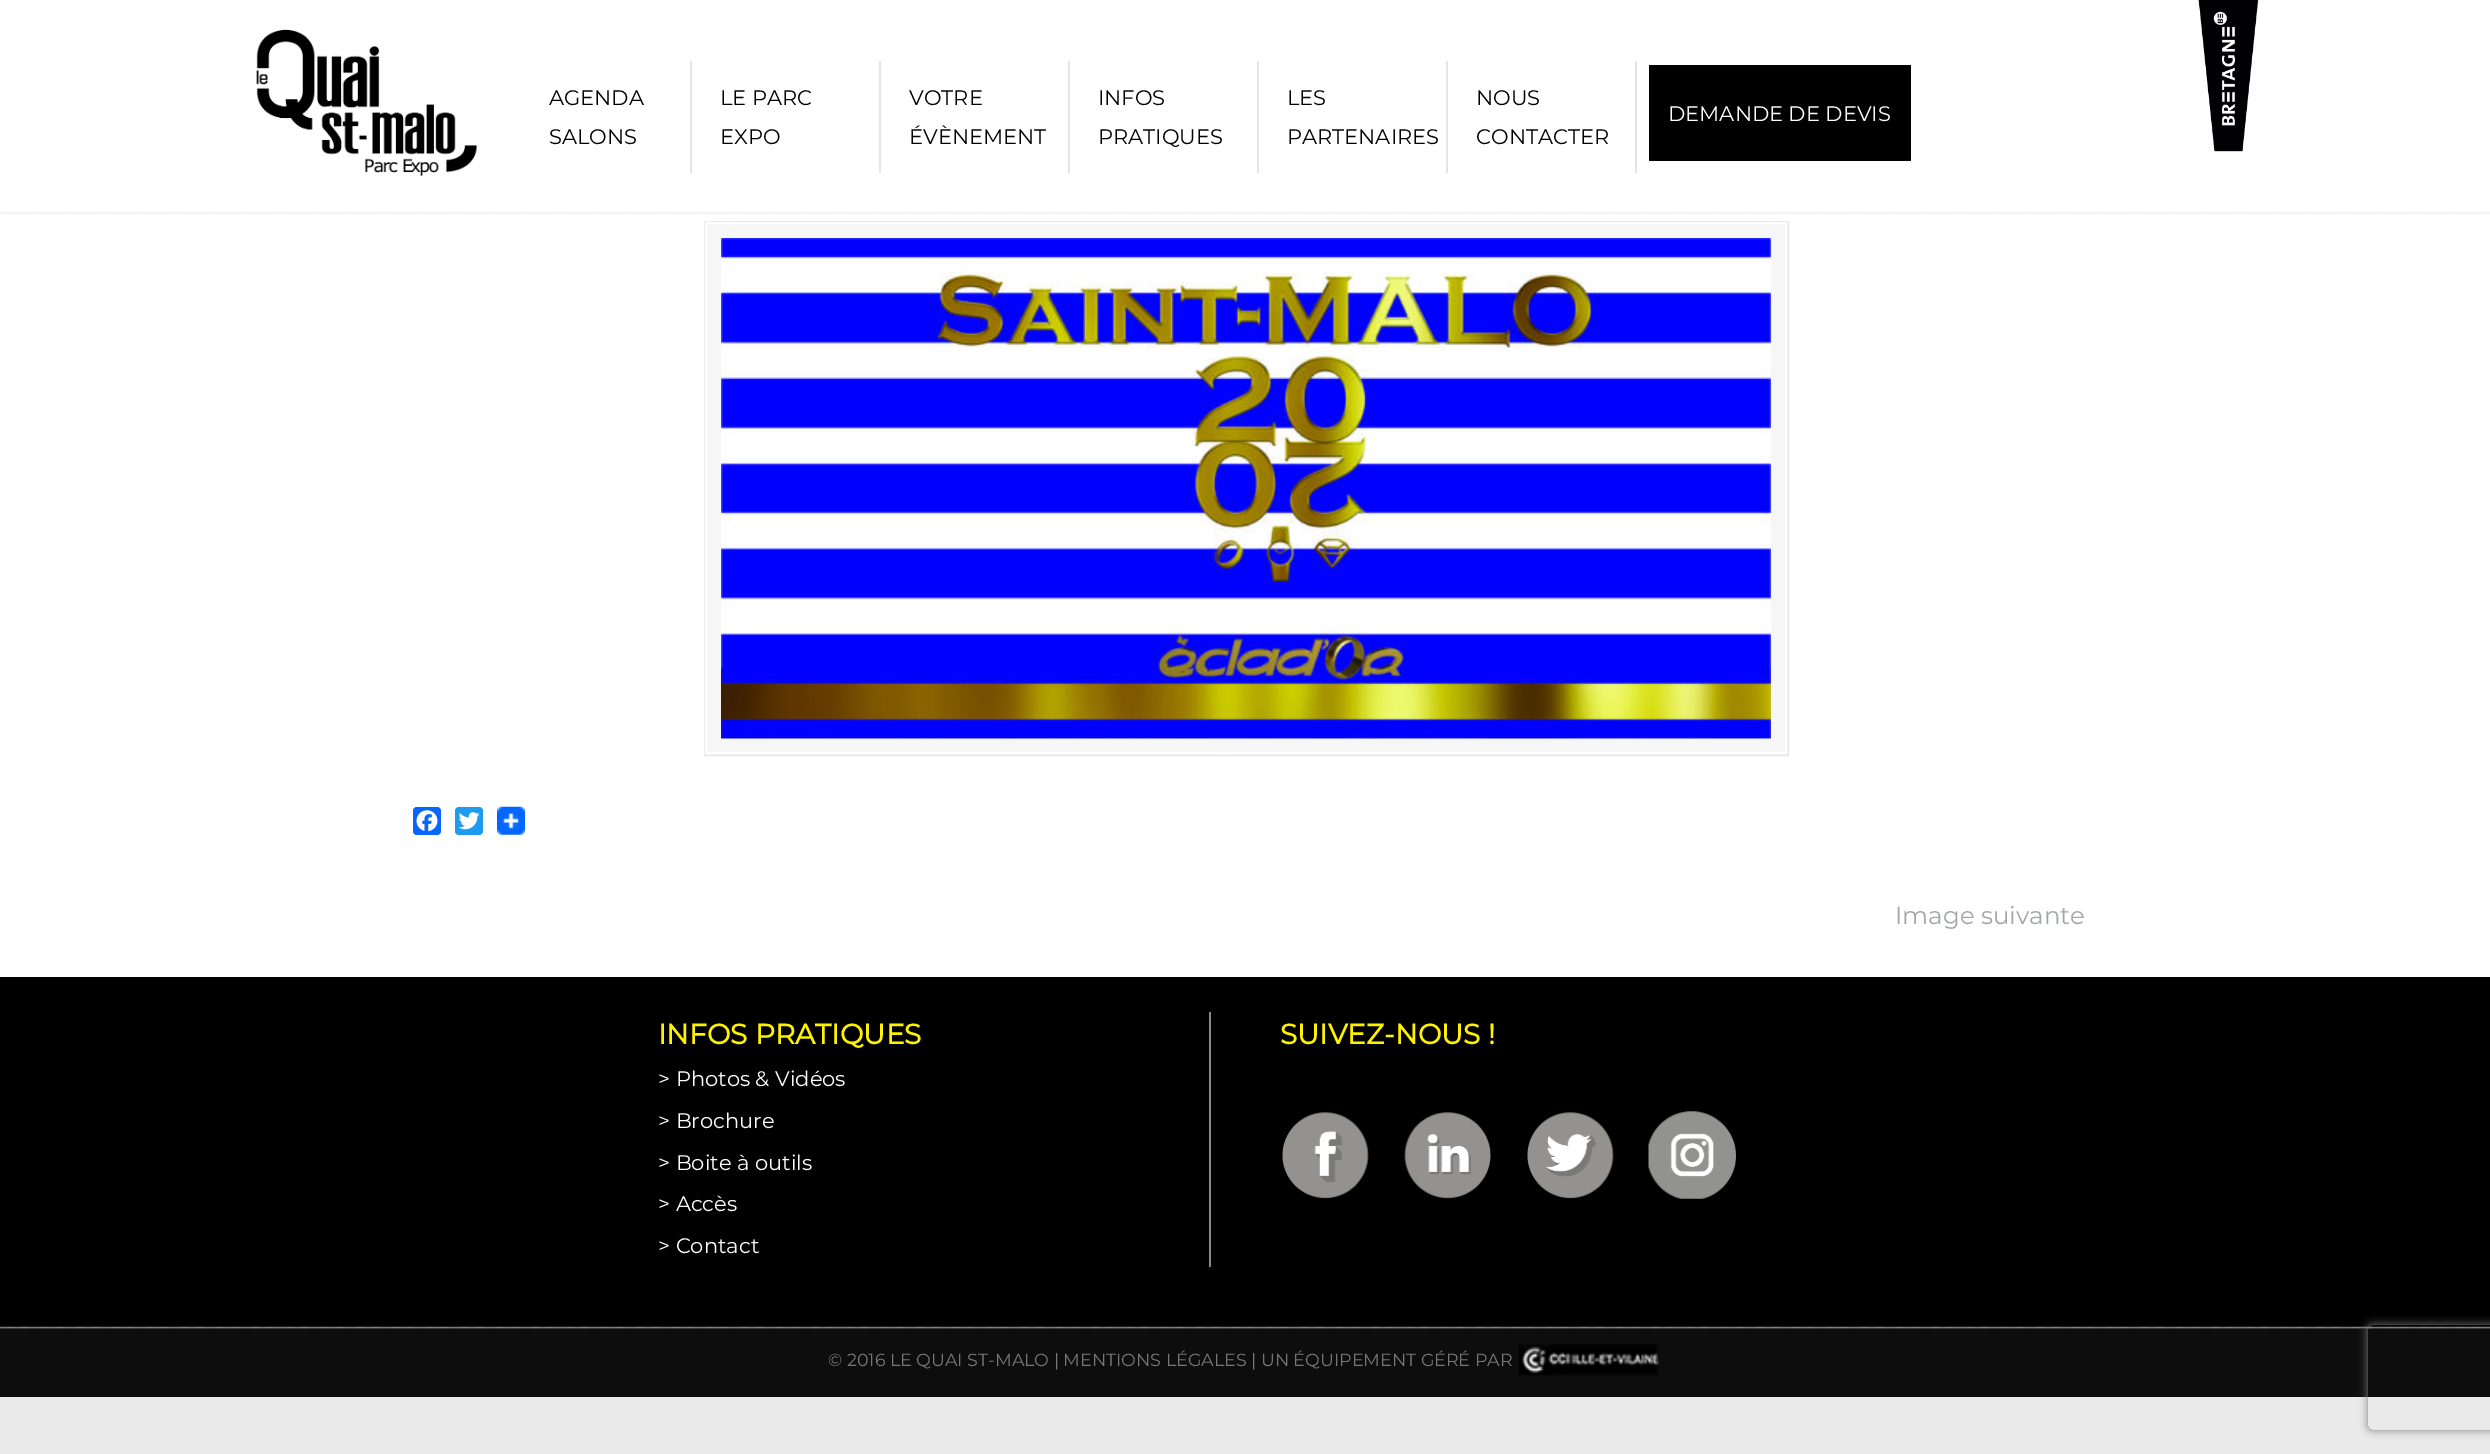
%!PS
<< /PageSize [2490 1454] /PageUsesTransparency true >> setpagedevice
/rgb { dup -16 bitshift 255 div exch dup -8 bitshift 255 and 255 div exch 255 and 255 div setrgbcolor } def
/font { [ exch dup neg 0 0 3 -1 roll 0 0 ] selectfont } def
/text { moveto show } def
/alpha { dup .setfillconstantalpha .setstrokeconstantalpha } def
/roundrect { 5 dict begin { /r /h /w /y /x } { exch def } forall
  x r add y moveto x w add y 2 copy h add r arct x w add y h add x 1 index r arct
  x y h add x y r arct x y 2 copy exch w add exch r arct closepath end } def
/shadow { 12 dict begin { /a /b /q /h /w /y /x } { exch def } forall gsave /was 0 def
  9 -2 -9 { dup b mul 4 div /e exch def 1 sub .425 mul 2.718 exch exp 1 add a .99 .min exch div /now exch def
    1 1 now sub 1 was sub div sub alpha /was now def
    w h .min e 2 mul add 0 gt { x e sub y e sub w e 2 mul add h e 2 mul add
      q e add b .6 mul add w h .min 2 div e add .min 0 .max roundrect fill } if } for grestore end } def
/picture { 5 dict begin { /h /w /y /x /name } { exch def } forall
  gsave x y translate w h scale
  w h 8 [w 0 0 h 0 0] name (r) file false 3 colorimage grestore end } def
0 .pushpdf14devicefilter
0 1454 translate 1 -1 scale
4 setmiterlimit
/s1 { /Montserrat-Thin 21 font 16#000000 rgb } def
/s2 { /Montserrat-Thin 21 font 16#FFFFFF rgb } def
/s3 { /Montserrat-Thin 24.5 font 16#A3A5A8 rgb } def
/s4 { /Montserrat-Bold 28 font 16#FEF200 rgb } def
/s5 { /Montserrat-Thin 17.5 font 16#787878 rgb } def
16#EAEAEA rgb
0 0 2490 1454 rectfill
16#FFFFFF rgb
0 0 2490 977 rectfill
(pic1.raw) 256 29 222 147 picture
(pic2.raw) 2198 0 61 152 picture
16#E5E5E5 rgb
690 61 2 112 rectfill
s1
(AGENDA) 549 105 text
(SALONS) 549 144 text
16#E5E5E5 rgb
879 61 2 112 rectfill
s1
(LE PARC) 720 105 text
(EXPO) 720 144 text
16#E5E5E5 rgb
1068 61 2 112 rectfill
s1
(VOTRE) 909 105 text
(ÉVÈNEMENT) 909 144 text
16#E5E5E5 rgb
1257 61 2 112 rectfill
s1
(INFOS) 1098 105 text
(PRATIQUES) 1098 144 text
16#E5E5E5 rgb
1446 61 2 112 rectfill
s1
(LES) 1287 105 text
(PARTENAIRES) 1287 144 text
16#E5E5E5 rgb
1635 61 2 112 rectfill
s1
(NOUS) 1476 105 text
(CONTACTER) 1476 144 text
1649 65 262 96 rectfill
s2
(DEMANDE DE DEVIS) 1668 121 text
(pic3.raw) 0 211 2490 4 picture
16#F6F6F6 rgb
707 224 1078 528 rectfill
16#EAEAEA rgb
2 setlinewidth
705 222 1083 533 rectstroke
16#FFFFFF rgb
706 223 1080 530 rectstroke
(pic4.raw) 721 238 1050 501 picture
16#0866FF rgb
413 807 28 28 4 roundrect fill
(pic5.raw) 416 810 22 22 picture
16#1D9BF0 rgb
455 807 28 28 4 roundrect fill
(pic6.raw) 458 812 22 18 picture
(pic7.raw) 497 806 28 29 picture
s3
(Image suivante) 1895 924 text
16#000000 rgb
0 977 2490 350 rectfill
16#888888 rgb
1209 1012 2 255 rectfill
s4
(INFOS PRATIQUES) 658 1044 text
s2
(> Photos & Vidéos) 658 1086 text
(> Brochure) 658 1128 text
(> Boite à outils) 658 1170 text
(> Accès) 658 1211 text
(> Contact) 658 1253 text
s4
(SUIVEZ-NOUS !) 1280 1044 text
(pic8.raw) 1282 1112 87 87 picture
(pic9.raw) 1404 1112 87 87 picture
(pic10.raw) 1527 1112 87 87 picture
(pic11.raw) 1648 1111 88 88 picture
16#0D0D0D rgb
0 1327 2490 70 rectfill
(pic12.raw) 0 1326 2490 3 picture
s5
(© 2016 LE QUAI ST-MALO | MENTIONS LÉGALES | UN ÉQUIPEMENT GÉRÉ PAR) 828 1366 text
(pic13.raw) 1518 1344 142 32 picture
gsave
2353 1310 moveto 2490 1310 lineto 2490 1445 lineto 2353 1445 lineto closepath 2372 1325 moveto 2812 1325 lineto 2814 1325 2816 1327 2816 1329 curveto 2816 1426 lineto 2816 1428 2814 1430 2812 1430 curveto 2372 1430 lineto 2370 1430 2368 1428 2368 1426 curveto 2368 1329 lineto 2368 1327 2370 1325 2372 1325 curveto closepath eoclip newpath
16#808080 rgb
2368 1325 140 105 4 4.5 1 shadow
grestore
.poppdf14devicefilter showpage
